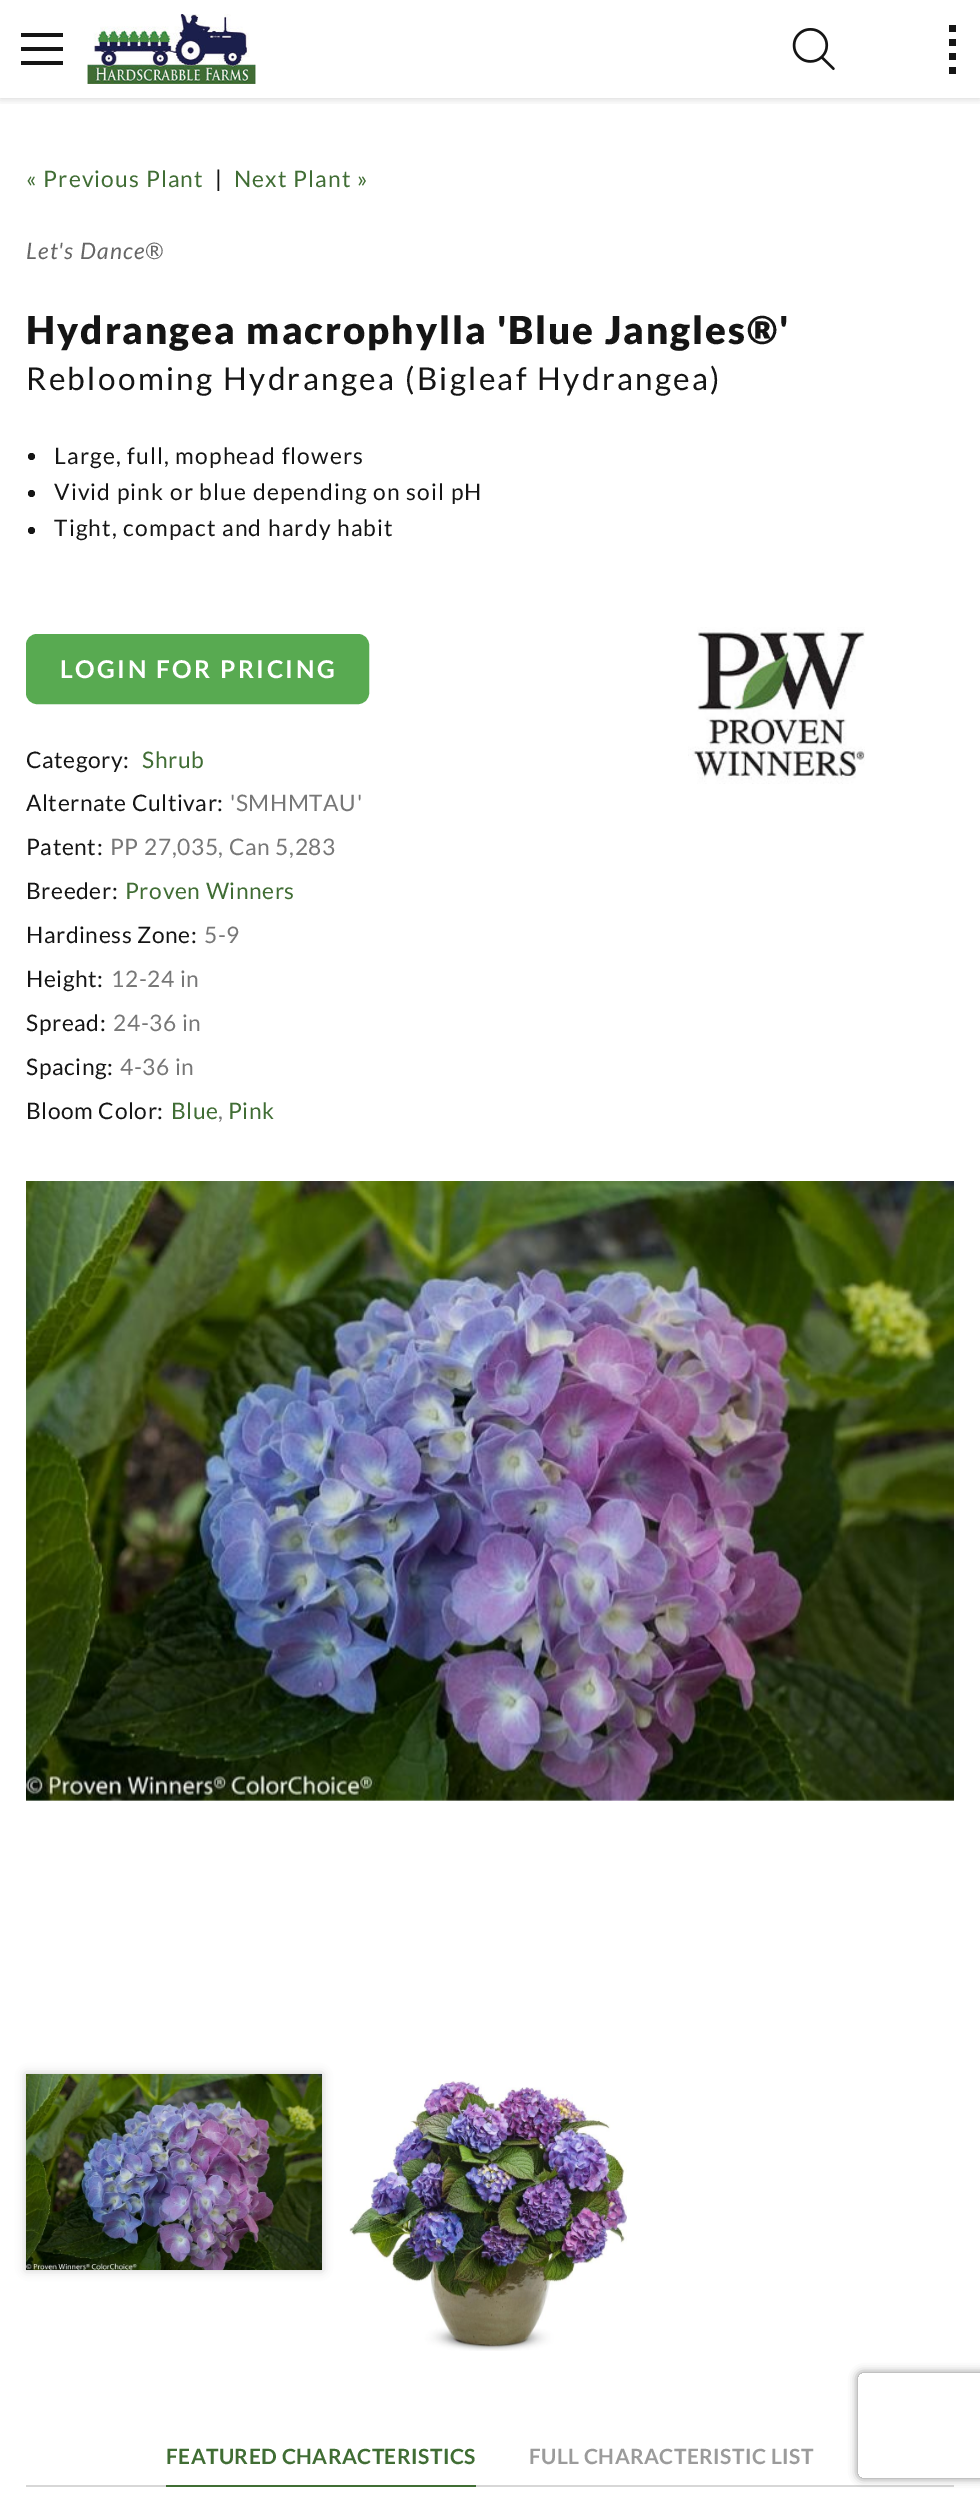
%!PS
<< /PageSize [980 2502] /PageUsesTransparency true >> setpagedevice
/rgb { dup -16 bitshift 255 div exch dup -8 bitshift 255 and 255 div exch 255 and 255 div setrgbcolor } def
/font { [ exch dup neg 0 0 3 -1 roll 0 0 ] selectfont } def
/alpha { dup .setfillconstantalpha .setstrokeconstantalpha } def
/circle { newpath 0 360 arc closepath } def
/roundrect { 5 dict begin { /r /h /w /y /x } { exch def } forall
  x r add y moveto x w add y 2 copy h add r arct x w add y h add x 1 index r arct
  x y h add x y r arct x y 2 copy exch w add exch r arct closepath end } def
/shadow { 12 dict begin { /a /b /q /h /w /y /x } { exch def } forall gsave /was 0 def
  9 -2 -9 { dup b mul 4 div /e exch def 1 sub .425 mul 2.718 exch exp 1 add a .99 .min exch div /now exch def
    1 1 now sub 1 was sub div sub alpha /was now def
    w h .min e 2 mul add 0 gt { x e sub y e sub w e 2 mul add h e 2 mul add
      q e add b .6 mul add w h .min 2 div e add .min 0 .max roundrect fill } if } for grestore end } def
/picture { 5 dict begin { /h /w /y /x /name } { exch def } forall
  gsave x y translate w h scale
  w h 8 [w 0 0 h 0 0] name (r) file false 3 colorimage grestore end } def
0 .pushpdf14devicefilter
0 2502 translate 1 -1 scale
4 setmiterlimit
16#FFFFFF rgb
0 0 980 2502 rectfill
gsave
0 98 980 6 rectclip
16#010304 rgb
0 0 980 98 0 4.5 0.19 shadow
grestore
16#151515 rgb
21 47 42 4 rectfill
21 33 42 4 rectfill
21 61 42 4 rectfill
(pic1.raw) 87 14 169 70 picture
(pic2.raw) 792 28 43 43 picture
949 25 7 7 rectfill
949 39 7 7 rectfill
949 53 7 7 rectfill
949 67 7 7 rectfill
/Lato-Regular 22.75 font
16#406D34 rgb
26 187 moveto 1.15 0 (« Previous Plant) ashow
16#151515 rgb
215 187 moveto 1.15 0 (|) ashow
16#406D34 rgb
234 187 moveto 1.15 0 (Next Plant ») ashow
/Lato-Italic 22.75 font
16#666666 rgb
26 259 moveto 1.15 0 (Let's Dance®) ashow
/Lato-Black 38.5 font
16#151515 rgb
26 344 moveto 1.95 0 (Hydrangea macrophylla 'Blue Jangles®') ashow
/Lato-Regular 31.5 font
26 390 moveto 2.35 0 (Reblooming Hydrangea \(Bigleaf Hydrangea\)) ashow
31.5 456.5 3.5 circle fill
/Lato-Regular 22.75 font
54 464 moveto 1.15 0 (Large, full, mophead flowers) ashow
31.5 493.5 3.5 circle fill
54 500 moveto 1.15 0 (Vivid pink or blue depending on soil pH) ashow
31.5 530.5 3.5 circle fill
54 536 moveto 1.15 0 (Tight, compact and hardy habit) ashow
16#58AA51 rgb
28 636 339 66 9 roundrect gsave fill grestore
4 setlinewidth
stroke
/Lato-Bold 24.5 font
16#FFFFFF rgb
60 678 moveto 2.5 0 (LOGIN FOR PRICING) ashow
(pic3.raw) 688 627 177 157 picture
/Lato-Regular 22.75 font
16#151515 rgb
26 768 moveto 0.6 0 (Category:) ashow
16#406D34 rgb
142 768 moveto 0.6 0 (Shrub) ashow
16#151515 rgb
26 811 moveto 0.6 0 (Alternate Cultivar:) ashow
16#777777 rgb
230 811 moveto 0.6 0 ('SMHMTAU') ashow
16#151515 rgb
26 855 moveto 0.6 0 (Patent:) ashow
16#777777 rgb
110 855 moveto 0.6 0 (PP 27,035, Can 5,283) ashow
16#151515 rgb
26 899 moveto 0.6 0 (Breeder:) ashow
16#406D34 rgb
125 899 moveto 0.6 0 (Proven Winners) ashow
16#151515 rgb
26 943 moveto 0.6 0 (Hardiness Zone:) ashow
16#777777 rgb
204 943 moveto 0.6 0 (5-9) ashow
16#151515 rgb
26 987 moveto 0.6 0 (Height:) ashow
16#777777 rgb
111 987 moveto 0.6 0 (12-24 in) ashow
16#151515 rgb
26 1031 moveto 0.6 0 (Spread:) ashow
16#777777 rgb
113 1031 moveto 0.6 0 (24-36 in) ashow
16#151515 rgb
26 1075 moveto 0.6 0 (Spacing:) ashow
16#777777 rgb
120 1075 moveto 0.6 0 (4-36 in) ashow
16#151515 rgb
26 1119 moveto 0.6 0 (Bloom Color:) ashow
16#406D34 rgb
171 1119 moveto 0.6 0 (Blue) ashow
16#777777 rgb
218 1119 moveto 0.6 0 (,) ashow
16#406D34 rgb
228 1119 moveto 0.6 0 (Pink) ashow
(pic4.raw) 26 1181 928 620 picture
16#000000 rgb
26 2074 296 196 0 5 0.21 shadow
(pic5.raw) 26 2074 296 196 picture
(pic6.raw) 349 2080 278 271 picture
/Lato-Bold 21 font
16#406D34 rgb
166 2464 moveto 0.4 0 (FEATURED CHARACTERISTICS) ashow
16#D7D7D7 rgb
26 2485 928 2 rectfill
16#406D34 rgb
166 2485 310 2 rectfill
16#9B9B9B rgb
529 2464 moveto 0.4 0 (FULL CHARACTERISTIC LIST) ashow
gsave
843 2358 moveto 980 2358 lineto 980 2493 lineto 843 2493 lineto closepath 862 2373 moveto 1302 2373 lineto 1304 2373 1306 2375 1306 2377 curveto 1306 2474 lineto 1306 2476 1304 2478 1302 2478 curveto 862 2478 lineto 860 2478 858 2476 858 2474 curveto 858 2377 lineto 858 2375 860 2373 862 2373 curveto closepath eoclip newpath
16#808080 rgb
858 2373 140 105 4 4.5 1 shadow
grestore
.poppdf14devicefilter showpage
